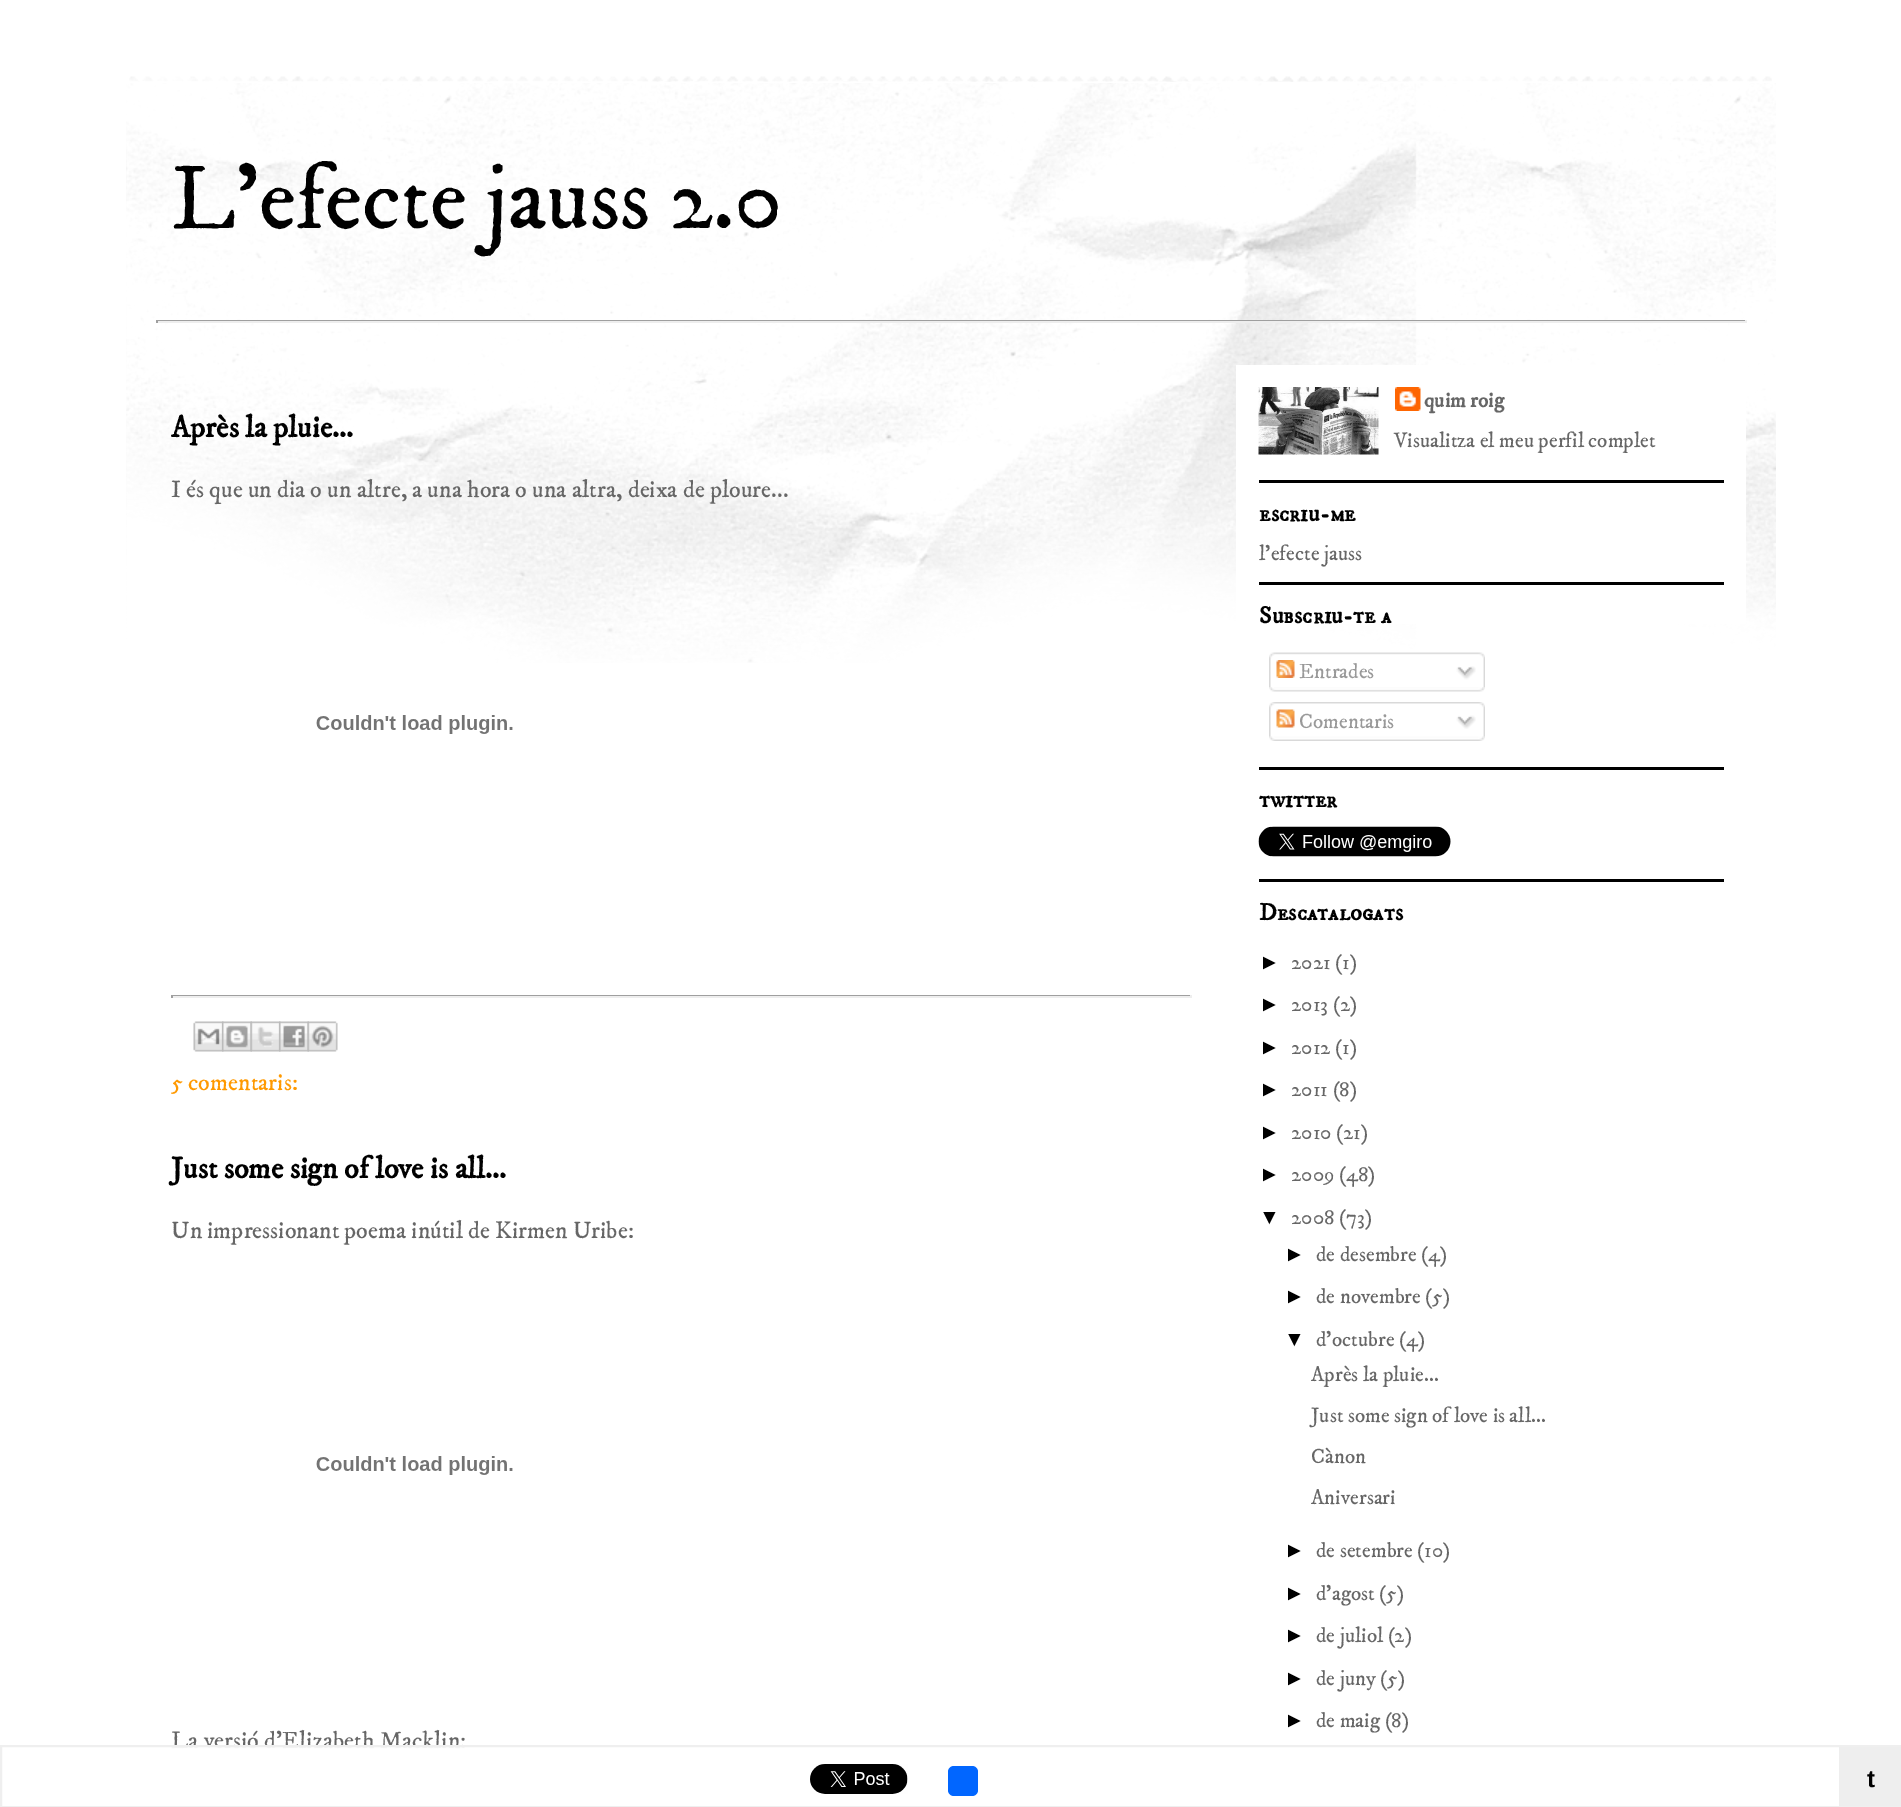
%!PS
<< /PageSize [1901 1807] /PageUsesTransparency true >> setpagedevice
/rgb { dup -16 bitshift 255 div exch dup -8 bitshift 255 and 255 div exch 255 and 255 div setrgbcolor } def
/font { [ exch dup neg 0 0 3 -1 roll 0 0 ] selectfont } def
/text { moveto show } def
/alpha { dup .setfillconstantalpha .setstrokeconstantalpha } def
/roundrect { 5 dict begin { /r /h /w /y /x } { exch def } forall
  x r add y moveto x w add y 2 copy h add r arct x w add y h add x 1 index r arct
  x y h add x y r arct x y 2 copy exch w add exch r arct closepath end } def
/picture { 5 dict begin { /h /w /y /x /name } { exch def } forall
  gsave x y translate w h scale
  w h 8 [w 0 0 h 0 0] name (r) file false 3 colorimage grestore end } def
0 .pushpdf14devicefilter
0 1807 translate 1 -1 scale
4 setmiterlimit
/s1 { /IMFELLDWPica-Regular 90 font 16#000000 rgb } def
/s2 { /IMFELLDWPica-Bold 30 font 16#000000 rgb } def
/s3 { /IMFELLDWPica-Regular 24 font 16#666666 rgb } def
/s4 { /IMFELLDWPica-Regular 24 font 16#FF9900 rgb } def
/s5 { /IMFELLDWPica-Bold 21 font 16#666666 rgb } def
/s6 { /IMFELLDWPica-Regular 21 font 16#666666 rgb } def
/s7 { /IMFELLDWPicaSC-Bold 24 font 16#000000 rgb } def
/s8 { /IMFELLDWPica-Regular 21 font 16#999999 rgb } def
/s9 { /LiberationSans-Regular 21 font 16#000000 rgb } def
/s10 { /LiberationSans-Bold 24 font 16#000000 rgb } def
16#FFFFFF rgb
0 0 1901 1807 rectfill
(pic1.raw) 129 76 1643 6 picture
(pic2.raw) 126 83 1650 580 picture
s1
(L'efecte jauss 2.0) 171 228 text
16#9F9F9F rgb
156 320 1590 1 rectfill
16#EEEEEE rgb
1745 320 2 3 rectfill
156 321 1590 2 rectfill
16#9F9F9F rgb
156 320 2 3 rectfill
16#FFFFFF rgb
1236 365 510 259 rectfill
s2
(Après la pluie...) 171 437 text
s3
(I és que un dia o un altre, a una hora o una altra, deixa de ploure...) 171 497 text
(pic3.raw) 316 715 197 19 picture
16#9F9F9F rgb
171 995 1020 1 rectfill
16#EEEEEE rgb
1190 995 2 3 rectfill
171 996 1020 2 rectfill
16#9F9F9F rgb
171 995 2 3 rectfill
(pic4.raw) 193 1021 31 31 picture
(pic5.raw) 222 1021 30 31 picture
(pic6.raw) 250 1021 31 31 picture
(pic7.raw) 279 1021 30 31 picture
(pic8.raw) 307 1021 31 31 picture
s4
(5 comentaris:) 171 1090 text
s2
(Just some sign of love is all...) 171 1178 text
s3
(Un impressionant poema inútil de Kirmen Uribe:) 171 1238 text
(pic3.raw) 316 1456 197 19 picture
(La versió d'Elizabeth Macklin:) 171 1748 text
16#000000 rgb
1259 480 465 3 rectfill
(pic9.raw) 1258 387 121 68 picture
(pic10.raw) 1395 387 26 24 picture
s5
(quim roig) 1424 407 text
s6
(Visualitza el meu perfil complet) 1394 447 text
16#000000 rgb
1259 582 465 3 rectfill
s7
(escriu-me) 1259 521 text
s6
(l'efecte jauss) 1259 560 text
16#000000 rgb
1259 767 465 3 rectfill
s7
(Subscriu-te a) 1259 623 text
(pic11.raw) 1269 652 216 35 picture
(pic12.raw) 1276 660 19 18 picture
s8
(Entrades) 1299 678 text
(pic13.raw) 1456 666 20 14 picture
(pic14.raw) 1269 687 216 5 picture
(pic15.raw) 1269 702 216 35 picture
(pic16.raw) 1276 709 19 19 picture
(Comentaris) 1299 728 text
(pic17.raw) 1456 715 20 14 picture
(pic18.raw) 1269 736 216 5 picture
16#000000 rgb
1259 879 465 3 rectfill
s7
(twitter) 1259 807 text
(pic19.raw) 1258 826 193 31 picture
(Descatalogats) 1259 920 text
s9
(►) 1259 969 text
s6
(2021 \(1\)) 1291 969 text
s9
(►) 1259 1011 text
s6
(2013 \(2\)) 1291 1011 text
s9
(►) 1259 1054 text
s6
(2012 \(1\)) 1291 1054 text
s9
(►) 1259 1096 text
s6
(2011 \(8\)) 1291 1096 text
s9
(►) 1259 1139 text
s6
(2010 \(21\)) 1291 1139 text
s9
(►) 1259 1181 text
s6
(2009 \(48\)) 1291 1181 text
s9
(▼) 1259 1224 text
s6
(2008 \(73\)) 1291 1224 text
s9
(►) 1284 1261 text
s6
(de desembre \(4\)) 1316 1261 text
s9
(►) 1284 1303 text
s6
(de novembre \(5\)) 1316 1303 text
s9
(▼) 1284 1346 text
s6
(d’octubre \(4\)) 1316 1346 text
(Après la pluie...) 1311 1381 text
(Just some sign of love is all...) 1311 1422 text
(Cànon) 1311 1463 text
(Aniversari) 1311 1504 text
s9
(►) 1284 1557 text
s6
(de setembre \(10\)) 1316 1557 text
s9
(►) 1284 1600 text
s6
(d’agost \(5\)) 1316 1600 text
s9
(►) 1284 1642 text
s6
(de juliol \(2\)) 1316 1642 text
s9
(►) 1284 1685 text
s6
(de juny \(5\)) 1316 1685 text
s9
(►) 1284 1727 text
s6
(de maig \(8\)) 1316 1727 text
0.94 alpha
16#FEFEFE rgb
171 1747 294 2 rectfill
1 alpha
16#EFEFEF rgb
2 setlinewidth
1 1746 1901 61 rectstroke
(pic20.raw) 810 1764 98 30 picture
16#0166FF rgb
948 1766 30 30 6 roundrect fill
16#EEEEEE rgb
1839 1747 62 59 rectfill
s10
(t) 1867 1787 text
.poppdf14devicefilter showpage
